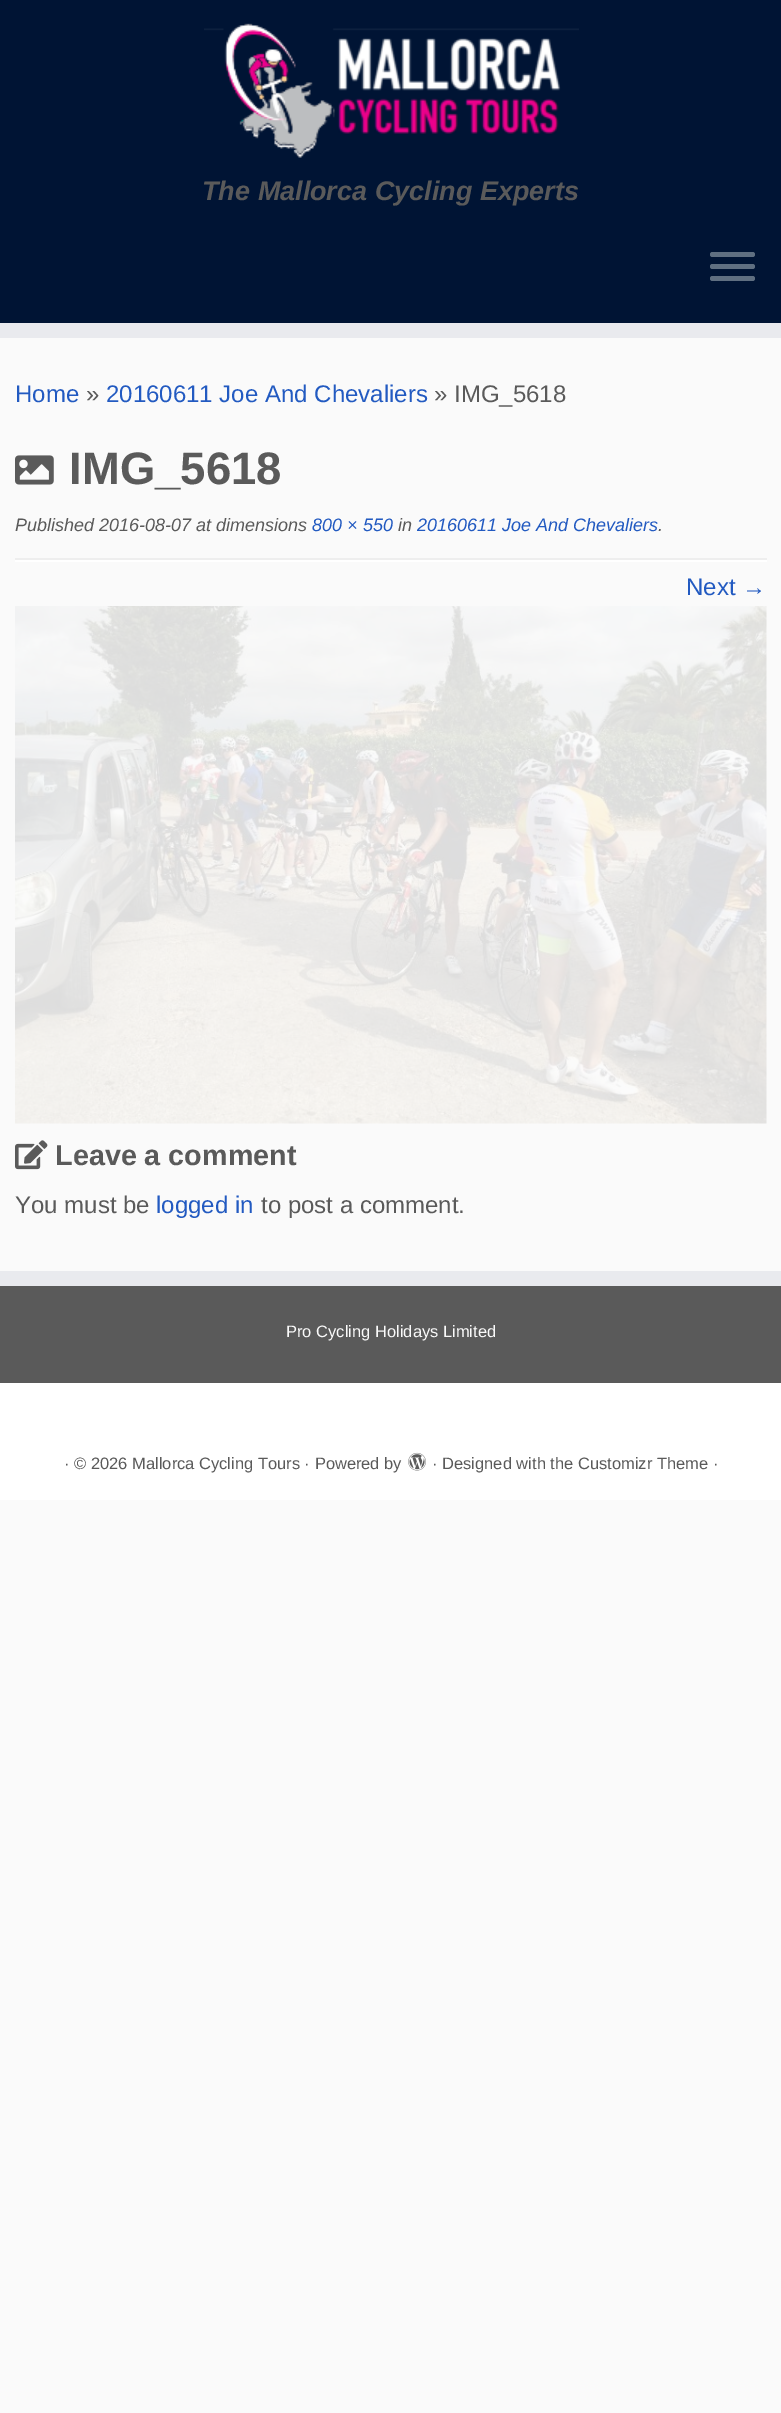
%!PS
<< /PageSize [781 2413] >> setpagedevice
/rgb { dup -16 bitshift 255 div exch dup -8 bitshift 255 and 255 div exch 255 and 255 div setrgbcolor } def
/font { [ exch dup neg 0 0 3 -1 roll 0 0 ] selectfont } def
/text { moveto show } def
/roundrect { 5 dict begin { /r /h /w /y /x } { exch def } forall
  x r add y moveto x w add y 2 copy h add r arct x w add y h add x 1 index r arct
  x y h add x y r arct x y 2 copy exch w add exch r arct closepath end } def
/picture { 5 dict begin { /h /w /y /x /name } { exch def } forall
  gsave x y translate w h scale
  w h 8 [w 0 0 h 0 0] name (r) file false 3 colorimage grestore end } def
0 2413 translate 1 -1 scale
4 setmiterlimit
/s1 { /LiberationSans-BoldItalic 27 font 16#5A5A5A rgb } def
/s2 { /LiberationSans-Regular 24 font 16#225AC1 rgb } def
/s3 { /LiberationSans-Regular 24 font 16#5A5A5A rgb } def
/s4 { /LiberationSans-Bold 45.5 font 16#5A5A5A rgb } def
/s5 { /LiberationSans-Italic 18 font 16#5A5A5A rgb } def
/s6 { /LiberationSans-Italic 18 font 16#225AC1 rgb } def
/s7 { /LiberationSans-Bold 28.75 font 16#5A5A5A rgb } def
/s8 { /LiberationSans-Regular 16.5 font 16#FAFAFA rgb } def
/s9 { /LiberationSans-Regular 16.5 font 16#5A5A5A rgb } def
16#FAFAFA rgb
0 0 781 2413 rectfill
16#001434 rgb
0 0 781 323 rectfill
16#E9EAEE rgb
0 323 781 15 rectfill
(pic1.raw) 204 23 375 135 picture
s1
(The Mallorca Cycling Experts) 202 200 text
16#5F6F81 rgb
710 252 45 5 2.5 roundrect fill
710 264 45 5 2.5 roundrect fill
710 276 45 5 2.5 roundrect fill
s2
(Home) 15 402 text
s3
(») 86 402 text
s2
(20160611 Joe And Chevaliers) 106 402 text
s3
(» IMG_5618) 434 402 text
(pic2.raw) 15 455 39 30 picture
s4
(IMG_5618) 69 484 text
s5
(Published 2016-08-07 at dimensions) 15 531 text
s6
(800 × 550) 312 531 text
s5
(in) 398 531 text
s6
(20160611 Joe And Chevaliers) 417 531 text
s5
(.) 658 531 text
16#EEEEEE rgb
15 558 752 2 rectfill
16#FFFFFF rgb
15 560 752 2 rectfill
s2
(Next →) 686 595 text
(pic3.raw) 15 606 752 518 picture
(pic4.raw) 15 1140 33 30 picture
s7
(Leave a comment) 55 1165 text
s3
(You must be) 15 1213 text
s2
(logged in) 156 1213 text
s3
(to post a comment.) 261 1213 text
0 1286 781 97 rectfill
16#E9EAEE rgb
0 1271 781 15 rectfill
s8
(Pro Cycling Holidays Limited) 286 1337 text
16#FFFFFF rgb
0 1383 781 117 rectfill
s9
(· © 2026 Mallorca Cycling Tours · Powered by) 64 1469 text
(pic5.raw) 408 1452 18 19 picture
(· Designed with the Customizr Theme ·) 432 1469 text
showpage
